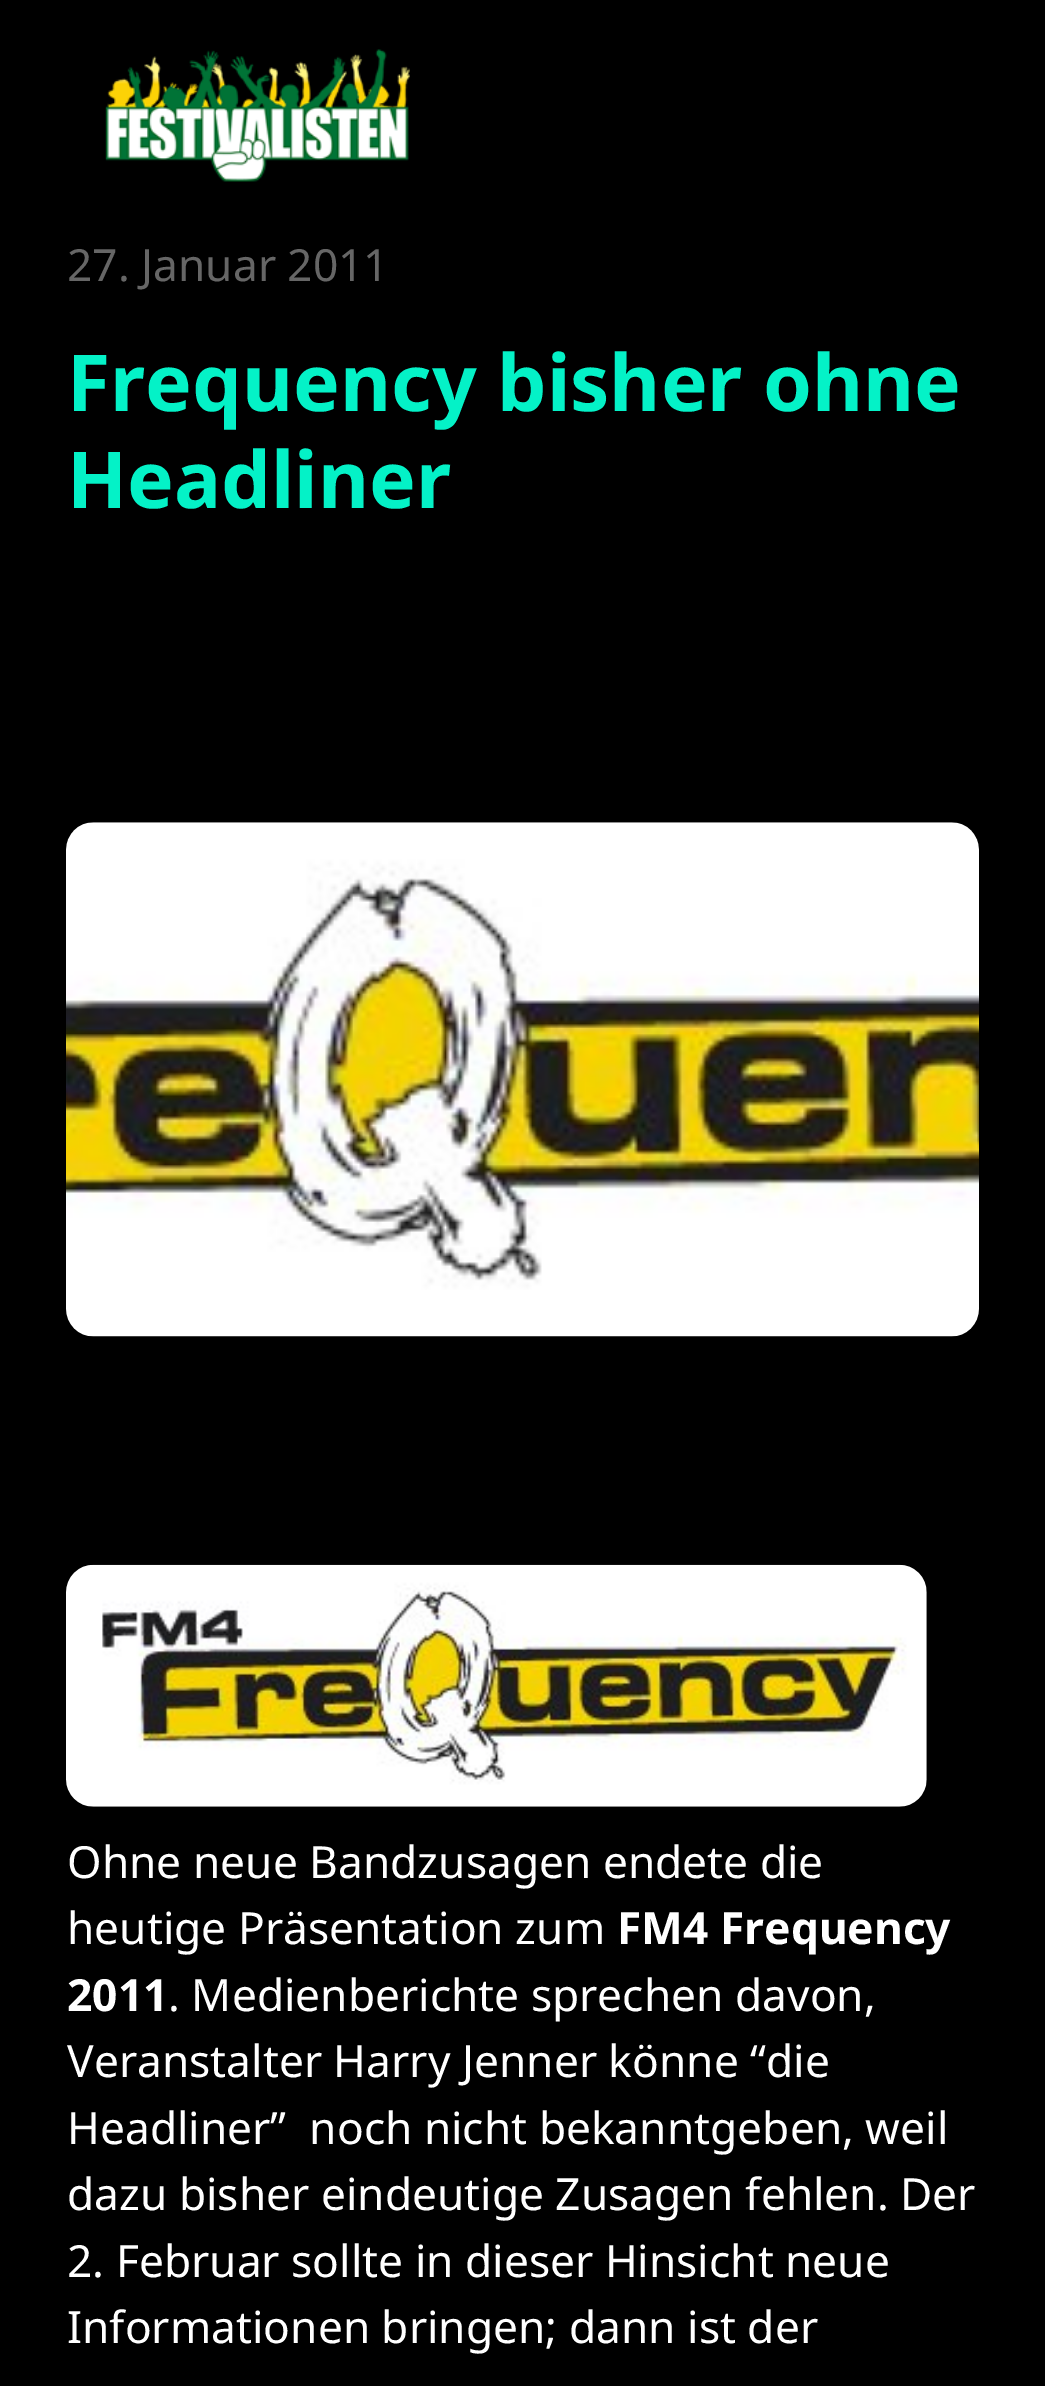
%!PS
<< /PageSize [1045 2386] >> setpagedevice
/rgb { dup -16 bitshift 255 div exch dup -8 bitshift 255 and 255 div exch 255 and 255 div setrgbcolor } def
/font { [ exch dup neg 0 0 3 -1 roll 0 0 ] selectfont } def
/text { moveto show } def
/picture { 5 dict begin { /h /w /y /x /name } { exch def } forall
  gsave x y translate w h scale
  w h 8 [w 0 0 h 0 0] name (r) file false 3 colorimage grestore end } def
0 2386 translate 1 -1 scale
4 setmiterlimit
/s1 { /NotoSans-Regular 44.3 font 16#666666 rgb } def
/s2 { /NotoSans-Bold 78.6 font 16#04F2C7 rgb } def
/s3 { /NotoSans-Regular 44.3 font 16#FFFFFF rgb } def
/s4 { /NotoSans-Bold 44.3 font 16#FFFFFF rgb } def
16#000000 rgb
0 0 1045 2386 rectfill
(pic1.raw) 105 49 305 133 picture
s1
(27. Januar 2011) 67 281 text
s2
(Frequency bisher ohne) 67 411 text
(Headliner) 67 508 text
(pic2.raw) 66 822 913 515 picture
(pic3.raw) 66 1564 861 243 picture
s3
(Ohne neue Bandzusagen endete die) 67 1878 text
(heutige Präsentation zum) 67 1944 text
s4
(FM4 Frequency) 617 1944 text
(2011) 67 2011 text
s3
(. Medienberichte sprechen davon,) 168 2011 text
(Veranstalter Harry Jenner könne “die) 67 2077 text
(Headliner”  noch nicht bekanntgeben, weil) 67 2144 text
(dazu bisher eindeutige Zusagen fehlen. Der) 67 2210 text
(2. Februar sollte in dieser Hinsicht neue) 67 2277 text
(Informationen bringen; dann ist der) 67 2343 text
showpage
